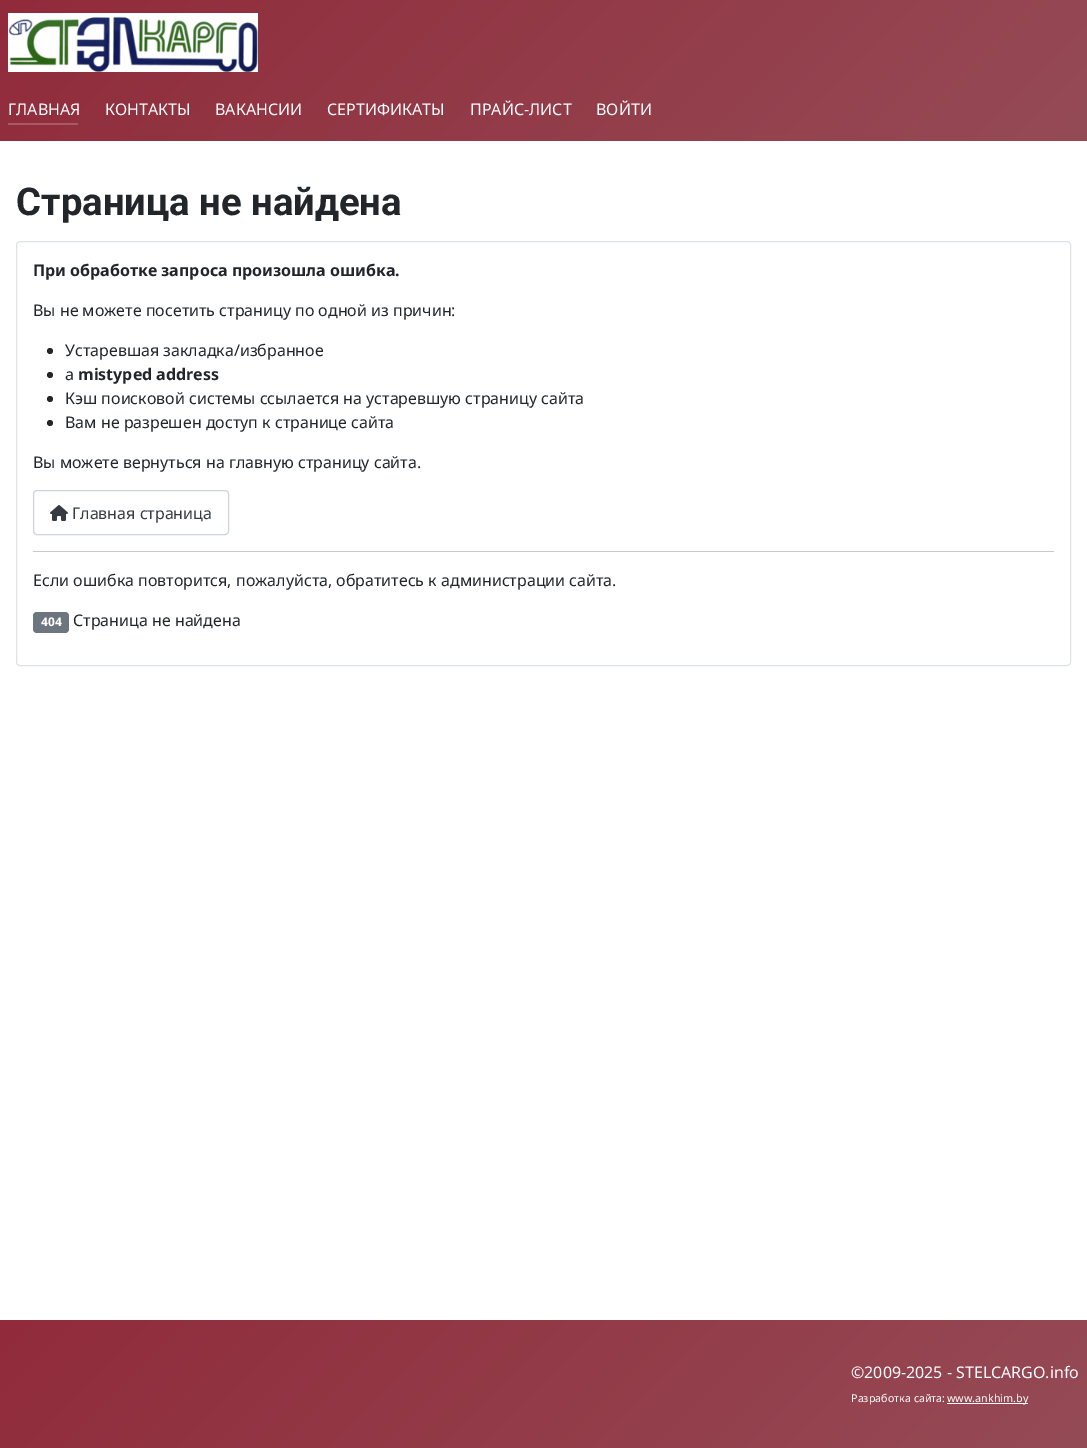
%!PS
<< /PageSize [1087 1448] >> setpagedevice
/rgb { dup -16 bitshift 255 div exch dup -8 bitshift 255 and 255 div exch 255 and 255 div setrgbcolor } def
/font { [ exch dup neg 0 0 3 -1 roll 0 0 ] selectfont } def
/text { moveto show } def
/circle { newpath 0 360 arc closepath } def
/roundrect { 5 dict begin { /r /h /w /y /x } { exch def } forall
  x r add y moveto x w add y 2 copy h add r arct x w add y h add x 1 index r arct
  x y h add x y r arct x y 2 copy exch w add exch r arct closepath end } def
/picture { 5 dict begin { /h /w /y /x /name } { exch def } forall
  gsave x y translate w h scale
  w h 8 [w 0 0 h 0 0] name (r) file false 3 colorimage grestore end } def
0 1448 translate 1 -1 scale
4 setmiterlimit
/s1 { /NotoSans-Regular 16 font 16#FFFFFF rgb } def
/s2 { /Roboto-Bold 38.25 font 16#22262A rgb } def
/s3 { /NotoSans-Bold 16 font 16#22262A rgb } def
/s4 { /NotoSans-Regular 16 font 16#22262A rgb } def
/s5 { /NotoSans-Regular 16 font 16#353B41 rgb } def
/s6 { /NotoSans-Bold 12 font 16#FFFFFF rgb } def
/s7 { /NotoSans-Regular 10.75 font 16#FFFFFF rgb } def
16#FFFFFF rgb
0 0 1087 1448 rectfill
gsave 0 0 moveto 1087 0 lineto 1087 141 lineto 0 141 lineto closepath clip newpath
<< /ShadingType 2 /ColorSpace /DeviceRGB /Coords [236 -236 851 378] /Extend [true true] /Function << /FunctionType 2 /Domain [0 1] /C0 [0.569 0.169 0.231] /C1 [0.584 0.294 0.337] /N 1 >> >> shfill grestore
(pic1.raw) 8 13 250 59 picture
s1
(ГЛАВНАЯ) 8 115 text
16#A85965 rgb
8 123 70 2 rectfill
s1
(КОНТАКТЫ) 105 115 text
(ВАКАНСИИ) 215 115 text
(СЕРТИФИКАТЫ) 327 115 text
(ПРАЙС-ЛИСТ) 470 115 text
(ВОЙТИ) 596 115 text
s2
(Страница не найдена) 16 215 text
16#DFE3E7 rgb
16.5 241.5 1054 424 3.5 roundrect stroke
s3
(При обработке запроса произошла ошибка.) 33 276 text
s4
(Вы не можете посетить страницу по одной из причин:) 33 316 text
50 351 3 circle fill
(Устаревшая закладка/избранное) 65 356 text
50 375 3 circle fill
(a) 65 380 text
s3
(mistyped address) 78 380 text
50 399 3 circle fill
s4
(Кэш поисковой системы ссылается на устаревшую страницу сайта) 65 404 text
50 423 3 circle fill
(Вам не разрешен доступ к странице сайта) 65 428 text
(Вы можете вернуться на главную страницу сайта.) 33 468 text
16#CED4DA rgb
33.5 490.5 195 44 3.5 roundrect stroke
(pic2.raw) 50 505 18 16 picture
s5
(Главная страница) 72 519 text
16#C8C9CA rgb
33 551 1021 1 rectfill
s4
(Если ошибка повторится, пожалуйста, обратитесь к администрации сайта.) 33 586 text
16#6D757E rgb
33 612 36 21 4 roundrect fill
s6
(404) 41 626 text
s4
(Страница не найдена) 73 626 text
gsave 0 1320 moveto 1087 1320 lineto 1087 1448 lineto 0 1448 lineto closepath clip newpath
<< /ShadingType 2 /ColorSpace /DeviceRGB /Coords [240 1080 847 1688] /Extend [true true] /Function << /FunctionType 2 /Domain [0 1] /C0 [0.569 0.169 0.231] /C1 [0.584 0.294 0.337] /N 1 >> >> shfill grestore
s1
(©2009-2025 - STELCARGO.info) 851 1378 text
s7
(Разработка сайта:) 851 1402 text
947 1403 81 1 rectfill
(www.ankhim.by) 947 1402 text
showpage
